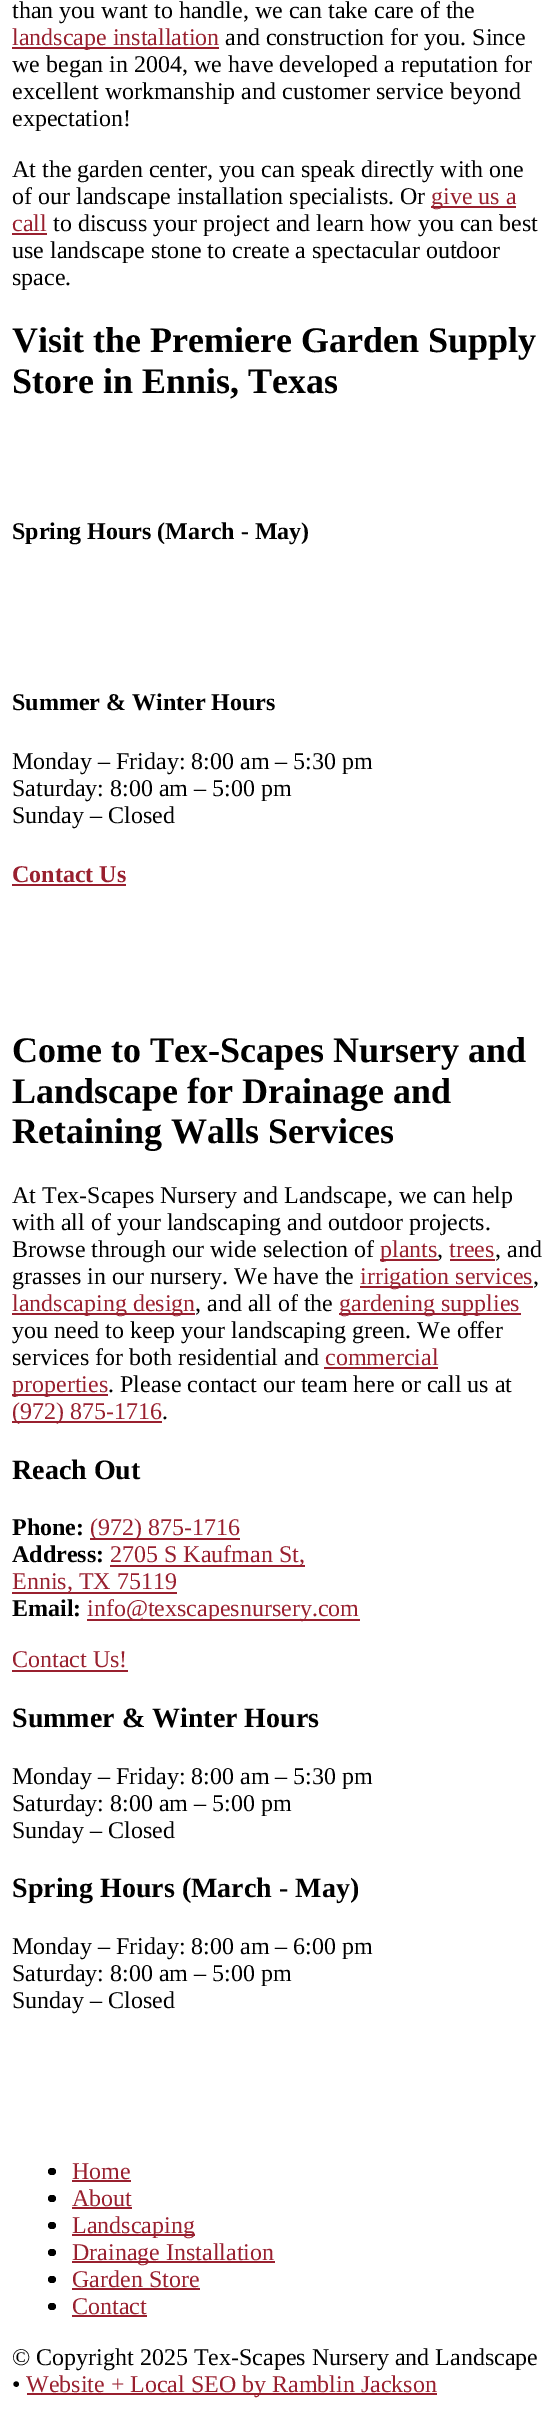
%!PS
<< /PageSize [554 2421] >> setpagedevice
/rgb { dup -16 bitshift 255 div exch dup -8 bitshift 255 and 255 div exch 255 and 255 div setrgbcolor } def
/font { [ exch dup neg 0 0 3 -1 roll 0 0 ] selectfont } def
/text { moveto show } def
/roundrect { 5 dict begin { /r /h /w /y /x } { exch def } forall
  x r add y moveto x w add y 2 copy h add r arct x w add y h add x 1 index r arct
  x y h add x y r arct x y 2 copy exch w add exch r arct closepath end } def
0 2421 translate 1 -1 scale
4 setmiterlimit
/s1 { /LiberationSerif-Regular 24 font 16#000000 rgb } def
/s2 { /LiberationSerif-Regular 24 font 16#99202F rgb } def
/s3 { /LiberationSerif-Bold 36 font 16#000000 rgb } def
/s4 { /LiberationSerif-Bold 24 font 16#000000 rgb } def
/s5 { /LiberationSerif-Bold 24 font 16#99202F rgb } def
/s6 { /LiberationSerif-Bold 28 font 16#000000 rgb } def
16#FFFFFF rgb
0 0 554 2421 rectfill
s1
(than you want to handle, we can take care of the) 12 18 text
16#99202F rgb
12 47 207 2 rectfill
(landscape installation) 12 45 text
s1
(and construction for you. Since) 225 45 text
(we began in 2004, we have developed a reputation for) 12 72 text
(excellent workmanship and customer service beyond) 12 99 text
(expectation!) 12 126 text
(At the garden center, you can speak directly with one) 12 177 text
(of our landscape installation specialists. Or) 12 204 text
16#99202F rgb
431 206 85 2 rectfill
(give us a) 431 204 text
(call) 12 231 text
12 233 35 2 rectfill
s1
(to discuss your project and learn how you can best) 53 231 text
(use landscape stone to create a spectacular outdoor) 12 258 text
(space.) 12 285 text
s3
(Visit the Premiere Garden Supply) 12 352 text
(Store in Ennis, Texas) 12 393 text
s4
(Spring Hours \(March - May\)) 12 539 text
(Summer & Winter Hours) 12 710 text
s1
(Monday – Friday: 8:00 am – 5:30 pm) 12 769 text
(Saturday: 8:00 am – 5:00 pm) 12 796 text
(Sunday – Closed) 12 823 text
s5
(Contact Us) 12 882 text
12 884 114 2 rectfill
s3
(Come to Tex-Scapes Nursery and) 12 1062 text
(Landscape for Drainage and) 12 1103 text
(Retaining Walls Services) 12 1143 text
s1
(At Tex-Scapes Nursery and Landscape, we can help) 12 1203 text
(with all of your landscaping and outdoor projects.) 12 1230 text
(Browse through our wide selection of) 12 1257 text
16#99202F rgb
380 1259 58 2 rectfill
(plants) 380 1257 text
s1
(,) 437 1257 text
s2
(trees) 449 1257 text
450 1259 45 2 rectfill
s1
(, and) 495 1257 text
(grasses in our nursery. We have the) 12 1284 text
16#99202F rgb
360 1286 173 2 rectfill
(irrigation services) 360 1284 text
s1
(,) 533 1284 text
16#99202F rgb
12 1313 183 2 rectfill
(landscaping design) 12 1311 text
s1
(, and all of the) 195 1311 text
16#99202F rgb
339 1313 182 2 rectfill
(gardening supplies) 339 1311 text
s1
(you need to keep your landscaping green. We offer) 12 1338 text
(services for both residential and) 12 1365 text
s2
(commercial) 325 1365 text
324 1367 114 2 rectfill
12 1394 96 2 rectfill
(properties) 12 1392 text
s1
(. Please contact our team here or call us at) 108 1392 text
16#99202F rgb
12 1421 150 2 rectfill
(\(972\) 875-1716) 12 1419 text
s1
(.) 162 1419 text
s6
(Reach Out) 12 1479 text
s4
(Phone:) 12 1535 text
16#99202F rgb
90 1538 150 2 rectfill
s2
(\(972\) 875-1716) 90 1535 text
s4
(Address:) 12 1562 text
16#99202F rgb
110 1565 195 2 rectfill
s2
(2705 S Kaufman St,) 110 1562 text
12 1592 165 2 rectfill
(Ennis, TX 75119) 12 1589 text
s4
(Email:) 12 1616 text
16#99202F rgb
87 1619 273 2 rectfill
s2
(info@texscapesnursery.com) 87 1616 text
(Contact Us!) 12 1667 text
12 1670 116 2 rectfill
s6
(Summer & Winter Hours) 12 1727 text
s1
(Monday – Friday: 8:00 am – 5:30 pm) 12 1784 text
(Saturday: 8:00 am – 5:00 pm) 12 1811 text
(Sunday – Closed) 12 1838 text
s6
(Spring Hours \(March - May\)) 12 1897 text
s1
(Monday – Friday: 8:00 am – 6:00 pm) 12 1954 text
(Saturday: 8:00 am – 5:00 pm) 12 1981 text
(Sunday – Closed) 12 2008 text
48 2168 8 7 3.5 roundrect fill
s2
(Home) 72 2179 text
72 2180 59 2 rectfill
16#000000 rgb
48 2195 8 7 3.5 roundrect fill
s2
(About) 72 2206 text
72 2207 60 2 rectfill
16#000000 rgb
48 2222 8 7 3.5 roundrect fill
16#99202F rgb
72 2234 123 2 rectfill
(Landscaping) 72 2233 text
16#000000 rgb
48 2249 8 7 3.5 roundrect fill
16#99202F rgb
72 2261 203 2 rectfill
(Drainage Installation) 72 2260 text
16#000000 rgb
48 2276 8 7 3.5 roundrect fill
s2
(Garden Store) 72 2287 text
72 2288 128 2 rectfill
16#000000 rgb
48 2303 8 7 3.5 roundrect fill
s2
(Contact) 72 2314 text
72 2315 75 2 rectfill
s1
(© Copyright 2025 Tex-Scapes Nursery and Landscape) 12 2365 text
(•) 12 2392 text
16#99202F rgb
27 2393 410 2 rectfill
(Website + Local SEO by Ramblin Jackson) 26 2392 text
showpage
